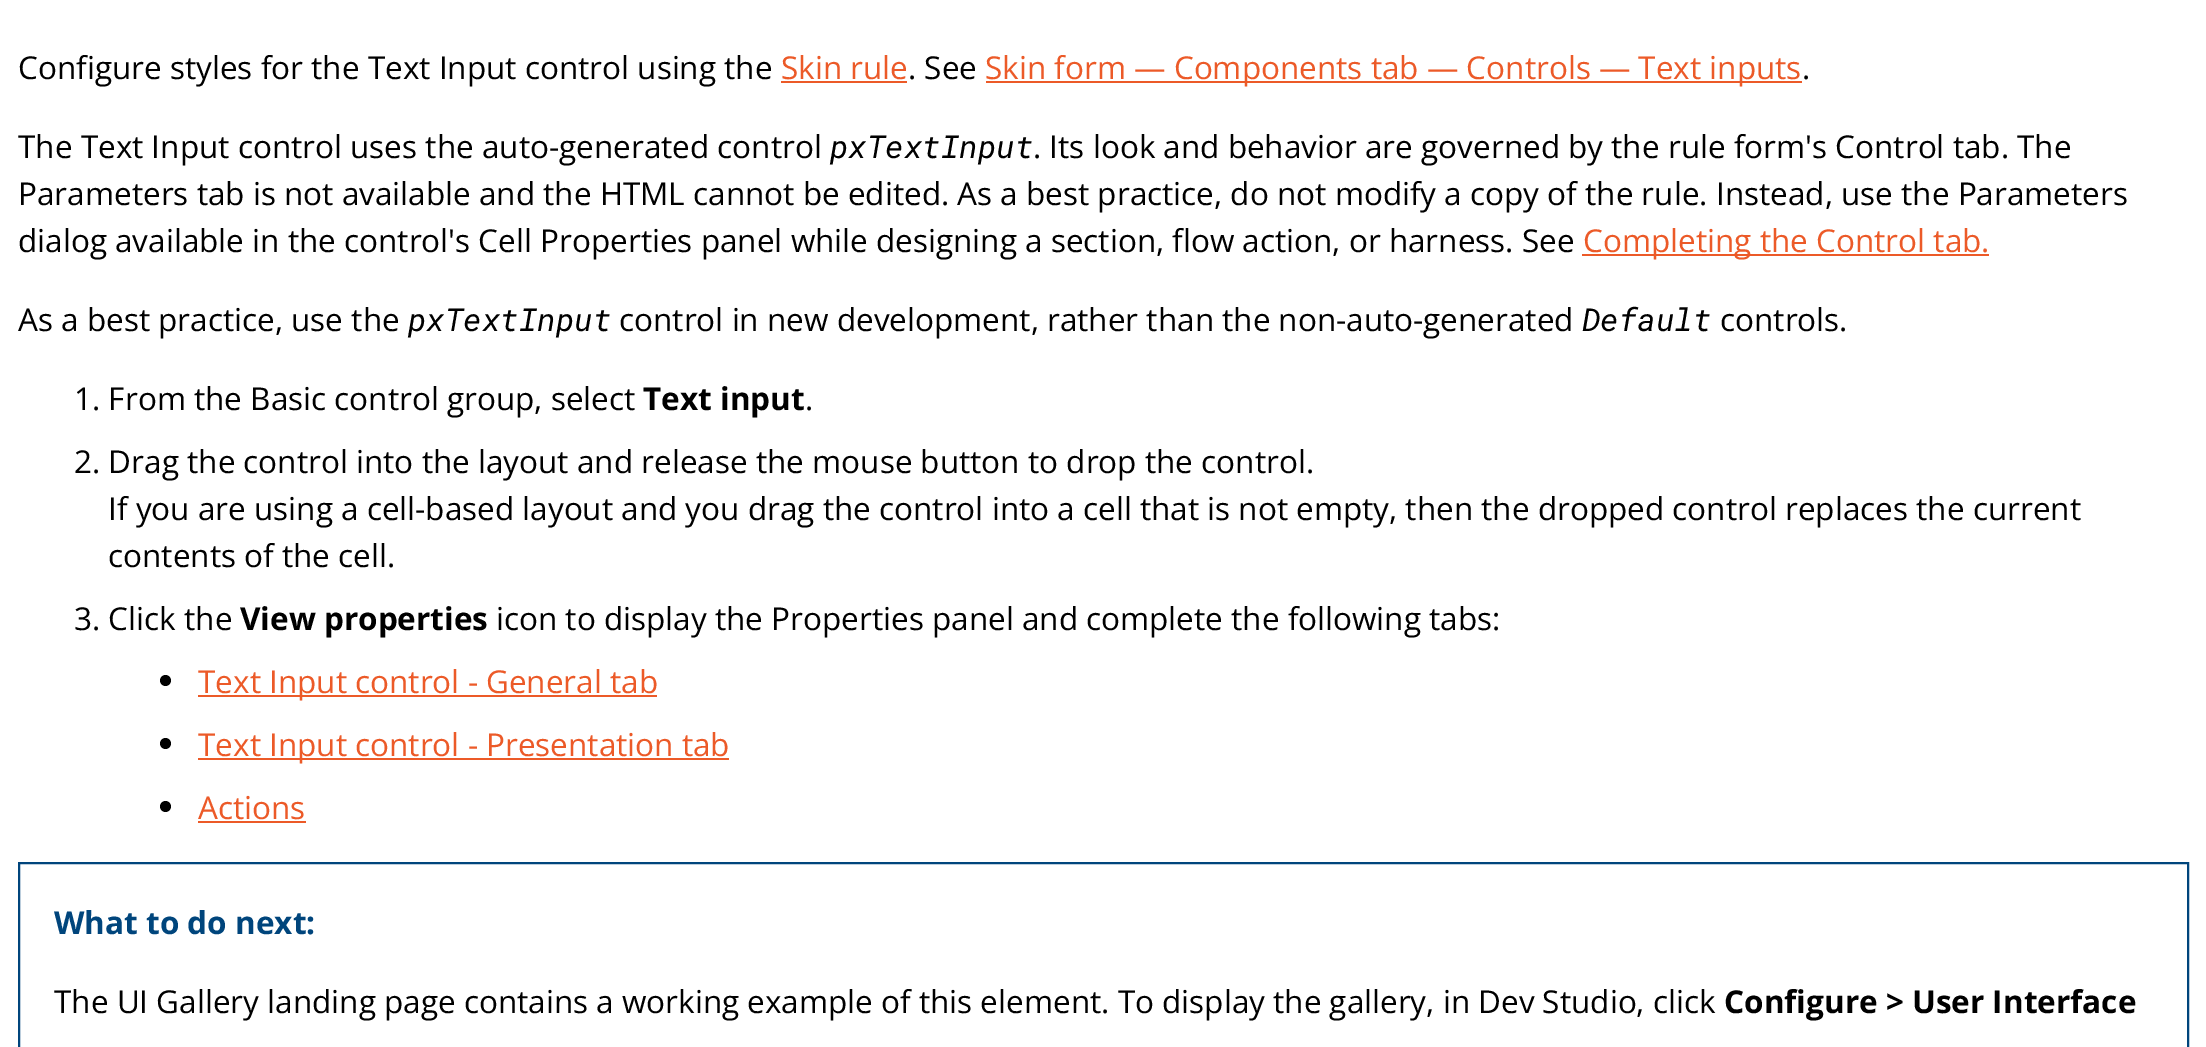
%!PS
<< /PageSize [2206 1047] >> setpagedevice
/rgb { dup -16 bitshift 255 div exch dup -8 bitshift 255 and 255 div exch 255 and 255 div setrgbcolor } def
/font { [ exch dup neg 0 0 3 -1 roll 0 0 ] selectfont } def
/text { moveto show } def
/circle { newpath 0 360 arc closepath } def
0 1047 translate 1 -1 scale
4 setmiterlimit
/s1 { /OpenSans-Regular 31.5 font 16#000000 rgb } def
/s2 { /OpenSans-Regular 31.5 font 16#EC5A28 rgb } def
/s3 { /RobotoMono-Italic 31.5 font 16#000000 rgb } def
/s4 { /OpenSans-Bold 31.5 font 16#000000 rgb } def
/s5 { /OpenSans-Bold 31.5 font 16#00457C rgb } def
16#FFFFFF rgb
0 0 2206 1047 rectfill
s1
(Configure styles for the Text Input control using the) 18 79 text
s2
(Skin rule) 781 79 text
781 81 126 2 rectfill
s1
(. See) 908 79 text
16#EC5A28 rgb
986 81 816 2 rectfill
(Skin form — Components tab — Controls — Text inputs) 985 79 text
s1
(.) 1802 79 text
(The Text Input control uses the auto-generated control) 18 158 text
s3
(pxTextInput) 830 158 text
s1
(. Its look and behavior are governed by the rule form's Control tab. The) 1033 158 text
(Parameters tab is not available and the HTML cannot be edited. As a best practice, do not modify a copy of the rule. Instead, use the Parameters) 18 205 text
(dialog available in the control's Cell Properties panel while designing a section, flow action, or harness. See) 18 252 text
16#EC5A28 rgb
1582 254 407 2 rectfill
(Completing the Control tab.) 1583 252 text
s1
(As a best practice, use the) 18 331 text
s3
(pxTextInput) 408 331 text
s1
(control in new development, rather than the non-auto-generated) 619 331 text
s3
(Default) 1582 331 text
s1
(controls.) 1720 331 text
(1. From the Basic control group, select) 74 410 text
s4
(Text input) 643 410 text
s1
(.) 805 410 text
(2. Drag the control into the layout and release the mouse button to drop the control.) 74 473 text
(If you are using a cell-based layout and you drag the control into a cell that is not empty, then the dropped control replaces the current) 108 520 text
(contents of the cell.) 108 567 text
(3. Click the) 74 630 text
s4
(View properties) 240 630 text
s1
(icon to display the Properties panel and complete the following tabs:) 496 630 text
165.5 680.5 5.5 circle fill
16#EC5A28 rgb
198 695 459 2 rectfill
(Text Input control - General tab) 198 693 text
16#000000 rgb
165.5 743.5 5.5 circle fill
16#EC5A28 rgb
198 758 531 2 rectfill
(Text Input control - Presentation tab) 198 756 text
16#000000 rgb
165.5 806.5 5.5 circle fill
s2
(Actions) 198 819 text
198 821 108 2 rectfill
16#00457C rgb
2 setlinewidth
19 863 2169 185 rectstroke
s5
(What to do next:) 54 934 text
s1
(The UI Gallery landing page contains a working example of this element. To display the gallery, in Dev Studio, click) 54 1013 text
s4
(Configure > User Interface) 1724 1013 text
showpage
